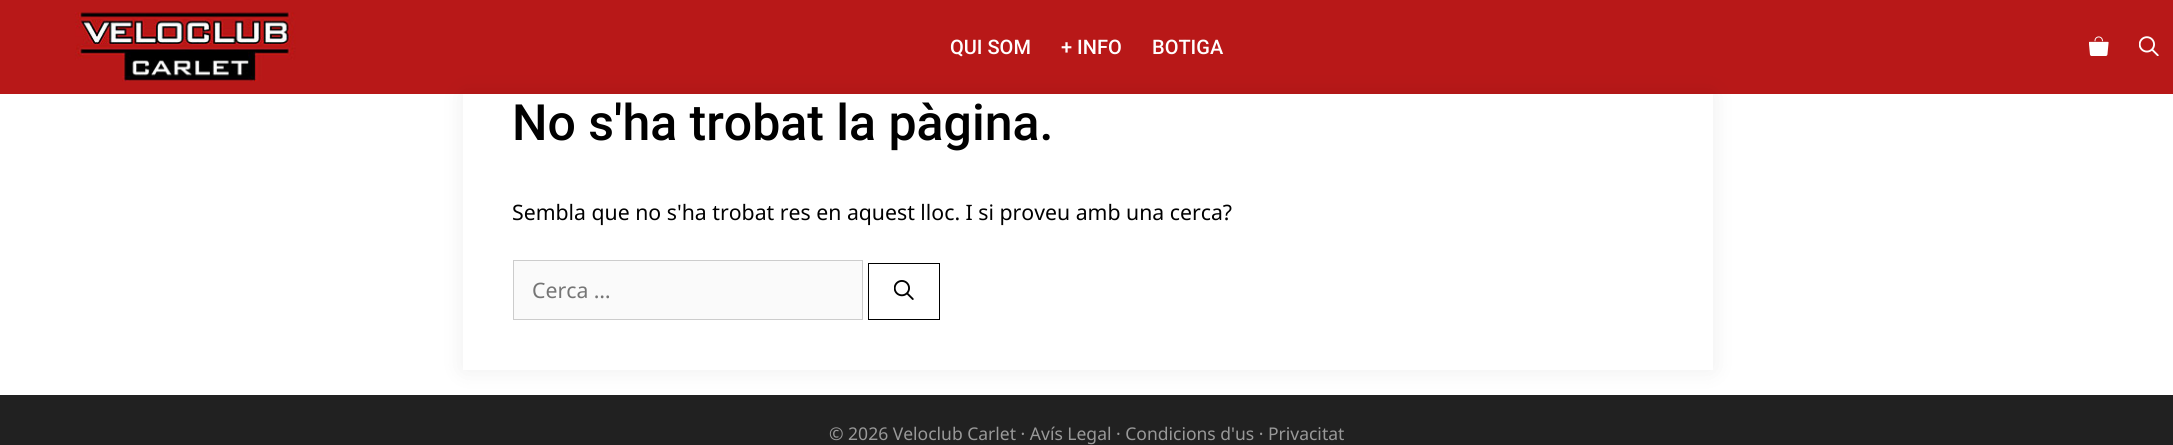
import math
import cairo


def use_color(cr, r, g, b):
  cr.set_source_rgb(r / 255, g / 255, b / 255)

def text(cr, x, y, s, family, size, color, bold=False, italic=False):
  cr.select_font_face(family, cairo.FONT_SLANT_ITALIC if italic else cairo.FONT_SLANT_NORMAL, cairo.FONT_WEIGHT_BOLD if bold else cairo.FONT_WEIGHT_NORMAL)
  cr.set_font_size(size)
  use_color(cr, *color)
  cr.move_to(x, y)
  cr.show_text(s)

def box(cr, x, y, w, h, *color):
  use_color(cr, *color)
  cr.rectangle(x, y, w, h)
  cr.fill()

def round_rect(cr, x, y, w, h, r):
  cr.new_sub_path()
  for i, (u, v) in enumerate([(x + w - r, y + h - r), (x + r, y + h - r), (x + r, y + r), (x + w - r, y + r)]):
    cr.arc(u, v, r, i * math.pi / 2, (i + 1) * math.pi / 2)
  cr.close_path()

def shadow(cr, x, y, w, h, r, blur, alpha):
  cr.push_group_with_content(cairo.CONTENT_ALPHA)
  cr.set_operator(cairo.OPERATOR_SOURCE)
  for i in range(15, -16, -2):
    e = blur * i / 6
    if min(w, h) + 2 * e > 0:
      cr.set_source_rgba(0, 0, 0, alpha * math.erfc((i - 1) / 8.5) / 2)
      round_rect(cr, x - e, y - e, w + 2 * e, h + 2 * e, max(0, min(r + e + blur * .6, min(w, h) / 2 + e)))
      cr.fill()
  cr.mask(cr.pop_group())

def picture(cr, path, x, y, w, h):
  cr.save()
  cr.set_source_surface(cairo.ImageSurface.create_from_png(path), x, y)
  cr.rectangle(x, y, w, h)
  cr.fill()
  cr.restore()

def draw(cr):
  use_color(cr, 255, 255, 255)
  cr.paint()
  box(cr, 0, 0, 2173, 94, 184, 24, 24)
  picture(cr, "img_01.png", 75, 12, 221, 70)
  picture(cr, "img_02.png", 2089, 36, 20, 20)
  picture(cr, "img_03.png", 2139, 36, 20, 20)
  box(cr, 0, 395, 2173, 50, 33, 33, 33)
  use_color(cr, 0, 0, 0)
  shadow(cr, 463, 94, 1250, 276, 0, 12.5, 0.07)
  box(cr, 463, 94, 1250, 276, 255, 255, 255)
  use_color(cr, 250, 250, 250)
  cr.rectangle(513.5, 260.5, 349, 59)
  cr.fill_preserve()
  use_color(cr, 204, 204, 204)
  cr.set_line_width(1)
  cr.stroke()
  cr.rectangle(868.5, 263.5, 71, 56)
  use_color(cr, 0, 0, 0)
  cr.stroke()
  picture(cr, "img_04.png", 894, 280, 20, 20)
  text(cr, 950, 54, "QUI SOM", "Roboto Medium", 20, (255, 255, 255))
  text(cr, 1061, 54, "+ INFO", "Roboto Medium", 20, (255, 255, 255))
  text(cr, 1152, 54, "BOTIGA", "Roboto Medium", 20, (255, 255, 255))
  text(cr, 512, 140, "No s'ha trobat la pàgina.", "Roboto Medium", 50, (0, 0, 0))
  text(cr, 512, 220, "Sembla que no s'ha trobat res en aquest lloc. I si proveu amb una cerca?", "Noto Sans", 21.25, (0, 0, 0))
  text(cr, 532, 298, "Cerca …", "Noto Sans", 21.25, (117, 117, 117))
  text(cr, 829, 440, "© 2026 Veloclub Carlet · Avís Legal · Condicions d'us · Privacitat", "Noto Sans", 17.5, (153, 153, 153))


surface = cairo.ImageSurface(cairo.FORMAT_RGB24, 2173, 445)
cr = cairo.Context(surface)
options = cairo.FontOptions()
options.set_hint_metrics(cairo.HINT_METRICS_OFF)
options.set_hint_style(cairo.HINT_STYLE_NONE)
cr.set_font_options(options)
cr.set_miter_limit(4)
draw(cr)
surface.write_to_png("out.png")
